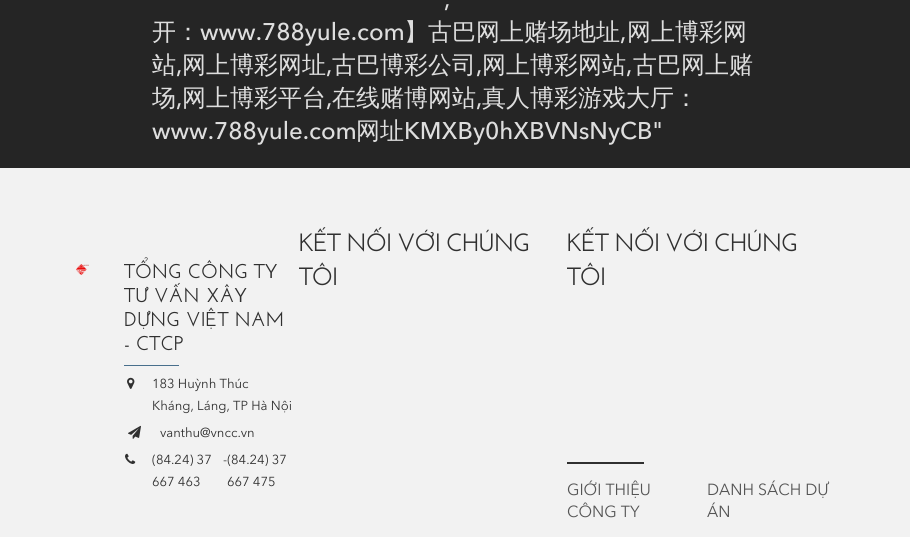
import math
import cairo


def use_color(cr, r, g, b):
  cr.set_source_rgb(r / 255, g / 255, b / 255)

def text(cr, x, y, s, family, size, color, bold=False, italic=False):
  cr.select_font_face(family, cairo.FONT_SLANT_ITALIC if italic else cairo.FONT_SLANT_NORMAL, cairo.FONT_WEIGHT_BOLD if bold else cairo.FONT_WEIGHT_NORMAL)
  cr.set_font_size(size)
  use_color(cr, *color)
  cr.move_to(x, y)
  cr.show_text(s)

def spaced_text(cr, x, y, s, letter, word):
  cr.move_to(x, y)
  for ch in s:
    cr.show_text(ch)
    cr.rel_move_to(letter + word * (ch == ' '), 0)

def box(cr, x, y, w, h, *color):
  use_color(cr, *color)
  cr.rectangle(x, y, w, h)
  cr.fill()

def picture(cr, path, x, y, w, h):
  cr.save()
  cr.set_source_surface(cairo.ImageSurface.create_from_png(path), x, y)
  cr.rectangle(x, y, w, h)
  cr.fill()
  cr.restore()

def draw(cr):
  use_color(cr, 242, 242, 242)
  cr.paint()
  box(cr, 0, 0, 910, 168, 37, 37, 37)
  picture(cr, "img_01.png", 76, 264, 13, 11)
  box(cr, 124, 365, 55, 1, 72, 111, 140)
  picture(cr, "img_02.png", 127, 377, 8, 12)
  picture(cr, "img_03.png", 128, 425, 13, 14)
  picture(cr, "img_04.png", 125, 453, 11, 11)
  box(cr, 567, 462, 77, 2, 48, 48, 48)
  text(cr, 444, 7, ",", "Avenir Next Medium", 24, (222, 222, 222))
  text(cr, 152, 40, "开：", "WenQuanYi Zen Hei Medium", 24, (222, 222, 222))
  text(cr, 200, 40, "www.788yule.com", "Avenir Next Medium", 24, (222, 222, 222))
  text(cr, 404, 40, "】古巴网上赌场地址", "WenQuanYi Zen Hei Medium", 24, (222, 222, 222))
  text(cr, 620, 40, ",", "Avenir Next Medium", 24, (222, 222, 222))
  text(cr, 627, 40, "网上博彩网", "WenQuanYi Zen Hei Medium", 24, (222, 222, 222))
  text(cr, 152, 73, "站", "WenQuanYi Zen Hei Medium", 24, (222, 222, 222))
  text(cr, 176, 73, ",", "Avenir Next Medium", 24, (222, 222, 222))
  text(cr, 182, 73, "网上博彩网址", "WenQuanYi Zen Hei Medium", 24, (222, 222, 222))
  text(cr, 326, 73, ",", "Avenir Next Medium", 24, (222, 222, 222))
  text(cr, 332, 73, "古巴博彩公司", "WenQuanYi Zen Hei Medium", 24, (222, 222, 222))
  text(cr, 476, 73, ",", "Avenir Next Medium", 24, (222, 222, 222))
  text(cr, 482, 73, "网上博彩网站", "WenQuanYi Zen Hei Medium", 24, (222, 222, 222))
  text(cr, 626, 73, ",", "Avenir Next Medium", 24, (222, 222, 222))
  text(cr, 633, 73, "古巴网上赌", "WenQuanYi Zen Hei Medium", 24, (222, 222, 222))
  text(cr, 152, 106, "场", "WenQuanYi Zen Hei Medium", 24, (222, 222, 222))
  text(cr, 176, 106, ",", "Avenir Next Medium", 24, (222, 222, 222))
  text(cr, 182, 106, "网上博彩平台", "WenQuanYi Zen Hei Medium", 24, (222, 222, 222))
  text(cr, 326, 106, ",", "Avenir Next Medium", 24, (222, 222, 222))
  text(cr, 332, 106, "在线赌博网站", "WenQuanYi Zen Hei Medium", 24, (222, 222, 222))
  text(cr, 476, 106, ",", "Avenir Next Medium", 24, (222, 222, 222))
  text(cr, 482, 106, "真人博彩游戏大厅：", "WenQuanYi Zen Hei Medium", 24, (222, 222, 222))
  text(cr, 152, 139, "www.788yule.com", "Avenir Next Medium", 24, (222, 222, 222))
  text(cr, 356, 139, "网址", "WenQuanYi Zen Hei Medium", 24, (222, 222, 222))
  text(cr, 404, 139, "KMXBy0hXBVNsNyCB\"", "Avenir Next Medium", 24, (222, 222, 222))
  text(cr, 124, 278, "TỔNG CÔNG TY", "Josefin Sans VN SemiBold", 20, (48, 48, 48))
  text(cr, 124, 302, "TƯ VẤN XÂY", "Josefin Sans VN SemiBold", 20, (48, 48, 48))
  text(cr, 124, 326, "DỰNG VIỆT NAM", "Josefin Sans VN SemiBold", 20, (48, 48, 48))
  text(cr, 124, 350, "- CTCP", "Josefin Sans VN SemiBold", 20, (48, 48, 48))
  text(cr, 152, 388, "183 Huỳnh Thúc", "Avenir Next", 13, (48, 48, 48))
  text(cr, 152, 410, "Kháng, Láng, TP Hà Nội", "Avenir Next", 13, (48, 48, 48))
  text(cr, 160, 437, "vanthu@vncc.vn", "Avenir Next", 13, (48, 48, 48))
  text(cr, 152, 464, "(84.24) 37", "Avenir Next", 13, (48, 48, 48))
  text(cr, 152, 486, "667 463", "Avenir Next", 13, (48, 48, 48))
  text(cr, 223, 464, "-(84.24) 37", "Avenir Next", 13, (48, 48, 48))
  text(cr, 227, 486, "667 475", "Avenir Next", 13, (48, 48, 48))
  cr.select_font_face("Josefin Sans VN SemiBold")
  cr.set_font_size(25)
  spaced_text(cr, 299, 251, "KẾT NỐI VỚI CHÚNG", -1, 0)
  spaced_text(cr, 299, 285, "TÔI", -1, 0)
  spaced_text(cr, 567, 251, "KẾT NỐI VỚI CHÚNG", -1, 0)
  spaced_text(cr, 567, 285, "TÔI", -1, 0)
  text(cr, 567, 495, "GIỚI THIỆU", "Avenir Next", 16, (85, 85, 85))
  text(cr, 567, 517, "CÔNG TY", "Avenir Next", 16, (85, 85, 85))
  text(cr, 707, 495, "DANH SÁCH DỰ", "Avenir Next", 16, (85, 85, 85))
  text(cr, 707, 517, "ÁN", "Avenir Next", 16, (85, 85, 85))


surface = cairo.ImageSurface(cairo.FORMAT_RGB24, 910, 537)
cr = cairo.Context(surface)
options = cairo.FontOptions()
options.set_hint_metrics(cairo.HINT_METRICS_OFF)
options.set_hint_style(cairo.HINT_STYLE_NONE)
cr.set_font_options(options)
cr.set_miter_limit(4)
draw(cr)
surface.write_to_png("out.png")
